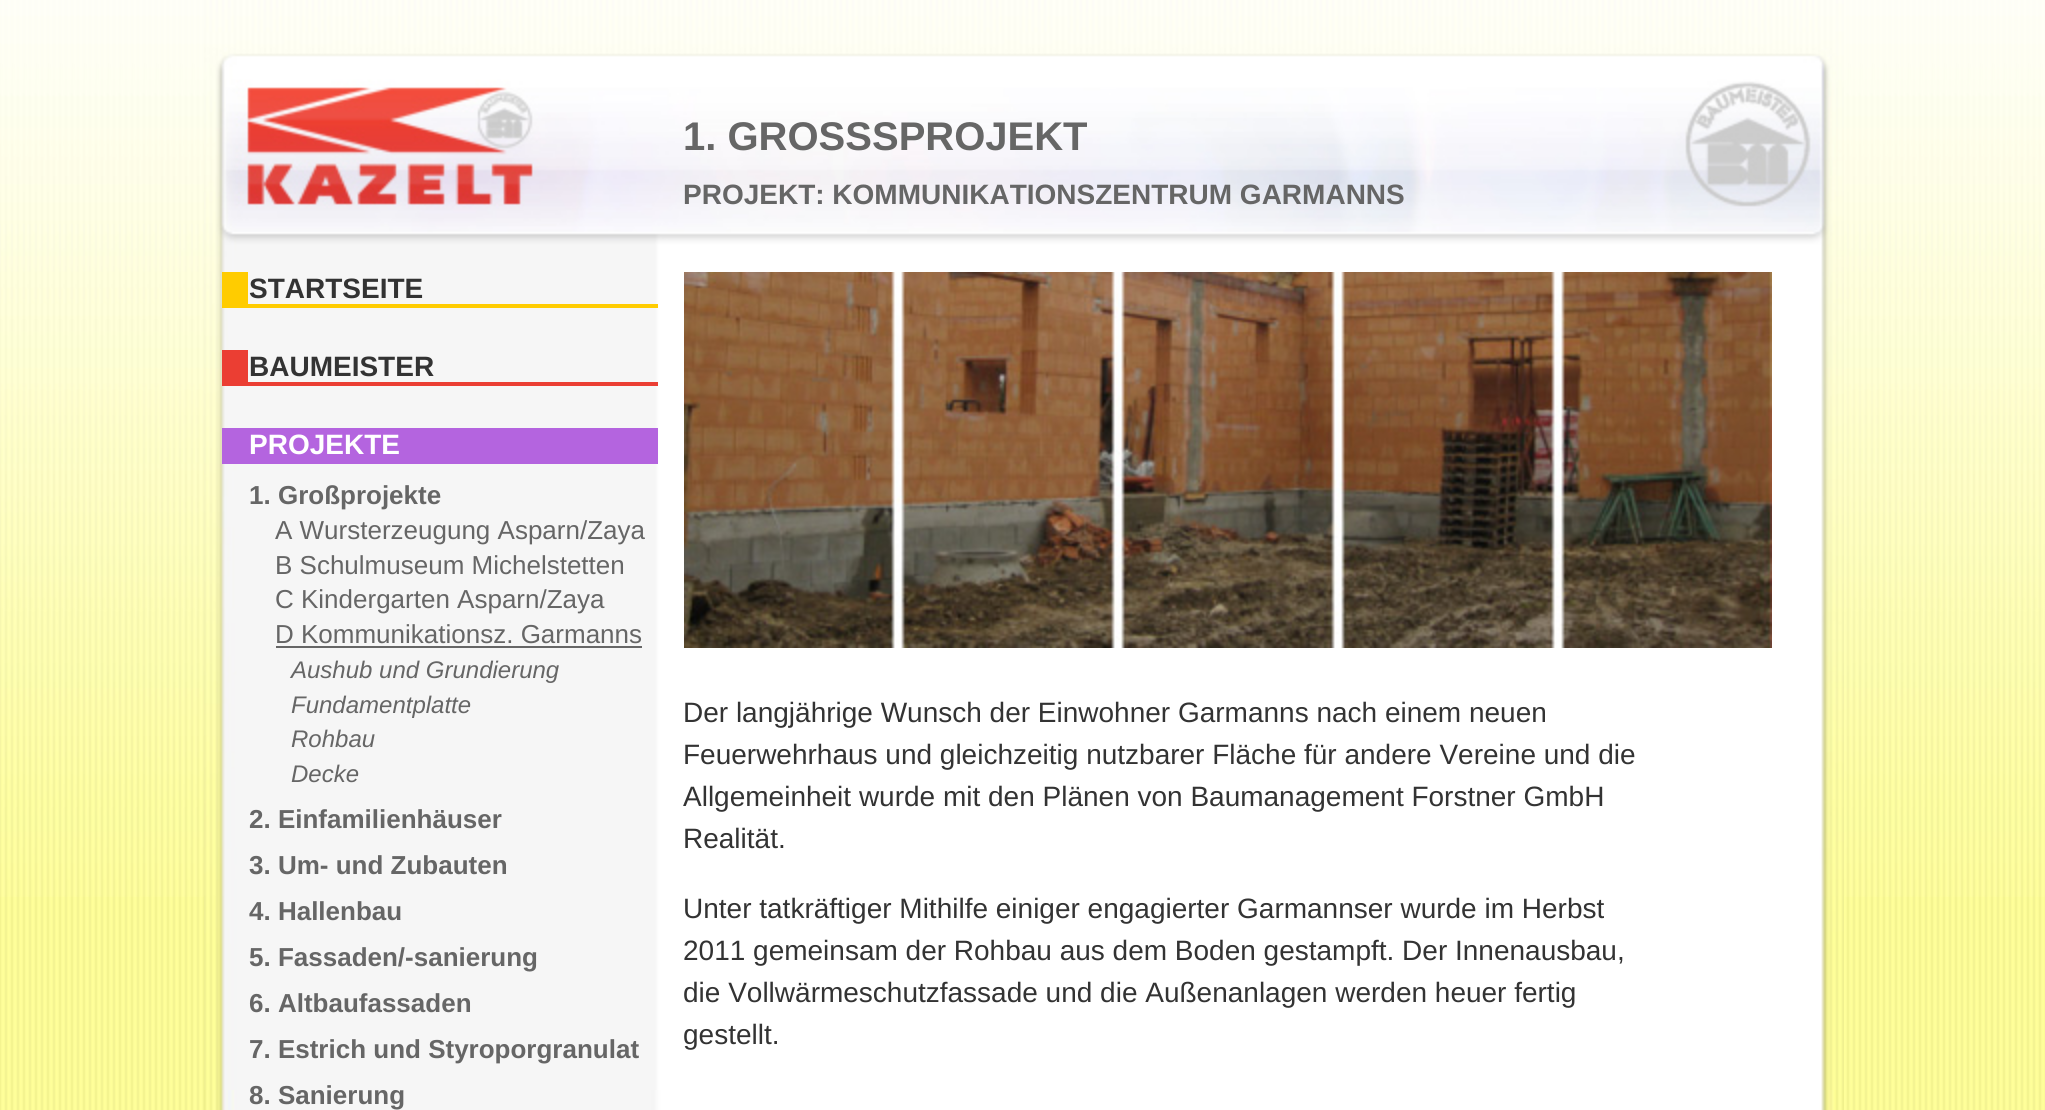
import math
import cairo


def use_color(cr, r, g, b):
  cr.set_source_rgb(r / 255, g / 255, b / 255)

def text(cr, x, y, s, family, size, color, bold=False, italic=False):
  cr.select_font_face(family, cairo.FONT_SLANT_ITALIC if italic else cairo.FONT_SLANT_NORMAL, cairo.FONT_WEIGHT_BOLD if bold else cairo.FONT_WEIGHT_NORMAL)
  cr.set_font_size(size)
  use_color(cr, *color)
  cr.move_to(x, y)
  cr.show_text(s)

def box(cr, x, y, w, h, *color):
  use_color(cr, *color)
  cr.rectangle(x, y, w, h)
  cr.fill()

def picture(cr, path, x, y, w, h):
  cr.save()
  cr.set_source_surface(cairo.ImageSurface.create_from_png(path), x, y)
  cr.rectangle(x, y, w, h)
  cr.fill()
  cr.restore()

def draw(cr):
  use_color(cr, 255, 255, 255)
  cr.paint()
  picture(cr, "img_01.png", 0, 897, 2045, 213)
  picture(cr, "img_02.png", 0, 0, 2045, 897)
  picture(cr, "img_03.png", 204, 1090, 1640, 20)
  picture(cr, "img_04.png", 204, 0, 1640, 258)
  picture(cr, "img_05.png", 204, 258, 1640, 832)
  box(cr, 248, 304, 410, 4, 255, 204, 0)
  box(cr, 222, 272, 26, 36, 255, 204, 0)
  box(cr, 248, 382, 410, 4, 235, 62, 51)
  box(cr, 222, 350, 26, 36, 235, 62, 51)
  box(cr, 248, 428, 410, 36, 180, 100, 223)
  box(cr, 222, 428, 26, 36, 180, 100, 223)
  box(cr, 276, 646, 366, 2, 102, 102, 102)
  picture(cr, "img_06.png", 684, 272, 1088, 376)
  text(cr, 683, 150, "1. GROSSSPROJEKT", "Liberation Sans", 40, (102, 102, 102), bold=True)
  text(cr, 683, 204, "PROJEKT: KOMMUNIKATIONSZENTRUM GARMANNS", "Liberation Sans", 28, (102, 102, 102), bold=True)
  text(cr, 249, 298, "STARTSEITE", "Liberation Sans", 28, (51, 51, 51), bold=True)
  text(cr, 249, 376, "BAUMEISTER", "Liberation Sans", 28, (51, 51, 51), bold=True)
  text(cr, 249, 454, "PROJEKTE", "Liberation Sans", 28, (255, 255, 255), bold=True)
  text(cr, 249, 504, "1. Großprojekte", "Liberation Sans", 26, (102, 102, 102), bold=True)
  text(cr, 275, 539, "A Wursterzeugung Asparn/Zaya", "Liberation Sans", 26, (102, 102, 102))
  text(cr, 275, 574, "B Schulmuseum Michelstetten", "Liberation Sans", 26, (102, 102, 102))
  text(cr, 275, 608, "C Kindergarten Asparn/Zaya", "Liberation Sans", 26, (102, 102, 102))
  text(cr, 275, 643, "D Kommunikationsz. Garmanns", "Liberation Sans", 26, (102, 102, 102))
  text(cr, 291, 678, "Aushub und Grundierung", "Liberation Sans", 24, (102, 102, 102), italic=True)
  text(cr, 291, 713, "Fundamentplatte", "Liberation Sans", 24, (102, 102, 102), italic=True)
  text(cr, 291, 747, "Rohbau", "Liberation Sans", 24, (102, 102, 102), italic=True)
  text(cr, 291, 782, "Decke", "Liberation Sans", 24, (102, 102, 102), italic=True)
  text(cr, 249, 828, "2. Einfamilienhäuser", "Liberation Sans", 26, (102, 102, 102), bold=True)
  text(cr, 249, 874, "3. Um- und Zubauten", "Liberation Sans", 26, (102, 102, 102), bold=True)
  text(cr, 249, 920, "4. Hallenbau", "Liberation Sans", 26, (102, 102, 102), bold=True)
  text(cr, 249, 966, "5. Fassaden/-sanierung", "Liberation Sans", 26, (102, 102, 102), bold=True)
  text(cr, 249, 1012, "6. Altbaufassaden", "Liberation Sans", 26, (102, 102, 102), bold=True)
  text(cr, 249, 1058, "7. Estrich und Styroporgranulat", "Liberation Sans", 26, (102, 102, 102), bold=True)
  text(cr, 249, 1104, "8. Sanierung", "Liberation Sans", 26, (102, 102, 102), bold=True)
  text(cr, 683, 722, "Der langjährige Wunsch der Einwohner Garmanns nach einem neuen", "Liberation Sans", 28, (51, 51, 51))
  text(cr, 683, 764, "Feuerwehrhaus und gleichzeitig nutzbarer Fläche für andere Vereine und die", "Liberation Sans", 28, (51, 51, 51))
  text(cr, 683, 806, "Allgemeinheit wurde mit den Plänen von Baumanagement Forstner GmbH", "Liberation Sans", 28, (51, 51, 51))
  text(cr, 683, 848, "Realität.", "Liberation Sans", 28, (51, 51, 51))
  text(cr, 683, 918, "Unter tatkräftiger Mithilfe einiger engagierter Garmannser wurde im Herbst", "Liberation Sans", 28, (51, 51, 51))
  text(cr, 683, 960, "2011 gemeinsam der Rohbau aus dem Boden gestampft. Der Innenausbau,", "Liberation Sans", 28, (51, 51, 51))
  text(cr, 683, 1002, "die Vollwärmeschutzfassade und die Außenanlagen werden heuer fertig", "Liberation Sans", 28, (51, 51, 51))
  text(cr, 683, 1044, "gestellt.", "Liberation Sans", 28, (51, 51, 51))


surface = cairo.ImageSurface(cairo.FORMAT_RGB24, 2045, 1110)
cr = cairo.Context(surface)
options = cairo.FontOptions()
options.set_hint_metrics(cairo.HINT_METRICS_OFF)
options.set_hint_style(cairo.HINT_STYLE_NONE)
cr.set_font_options(options)
cr.set_miter_limit(4)
draw(cr)
surface.write_to_png("out.png")
